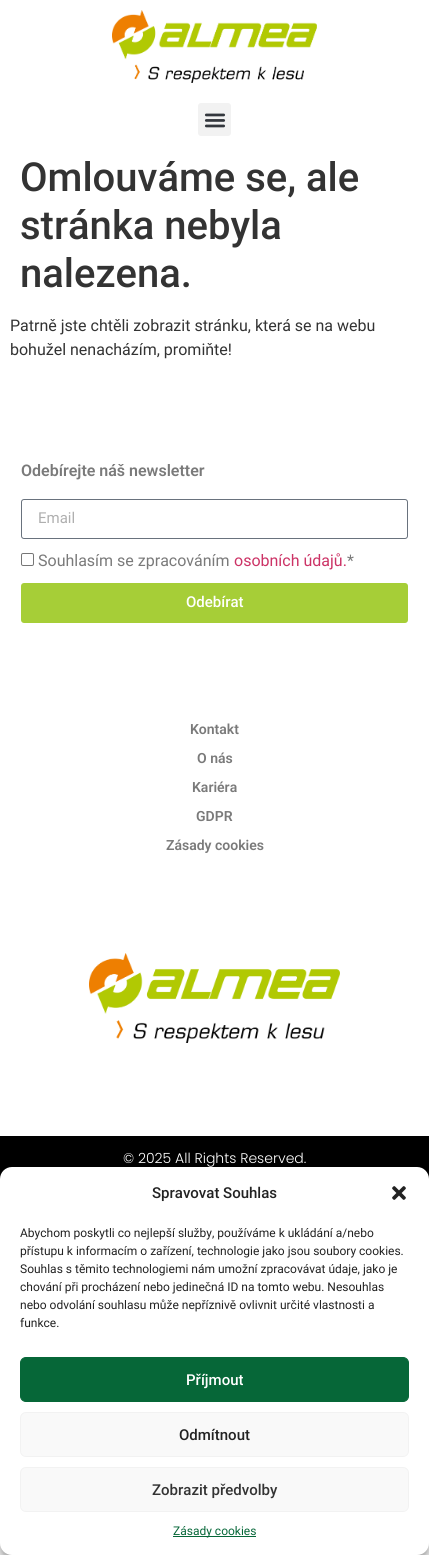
import math
import cairo


def use_color(cr, r, g, b):
  cr.set_source_rgb(r / 255, g / 255, b / 255)

def text(cr, x, y, s, family, size, color, bold=False, italic=False):
  cr.select_font_face(family, cairo.FONT_SLANT_ITALIC if italic else cairo.FONT_SLANT_NORMAL, cairo.FONT_WEIGHT_BOLD if bold else cairo.FONT_WEIGHT_NORMAL)
  cr.set_font_size(size)
  use_color(cr, *color)
  cr.move_to(x, y)
  cr.show_text(s)

def box(cr, x, y, w, h, *color):
  use_color(cr, *color)
  cr.rectangle(x, y, w, h)
  cr.fill()

def round_rect(cr, x, y, w, h, r):
  cr.new_sub_path()
  for i, (u, v) in enumerate([(x + w - r, y + h - r), (x + r, y + h - r), (x + r, y + r), (x + w - r, y + r)]):
    cr.arc(u, v, r, i * math.pi / 2, (i + 1) * math.pi / 2)
  cr.close_path()

def shadow(cr, x, y, w, h, r, blur, alpha):
  cr.push_group_with_content(cairo.CONTENT_ALPHA)
  cr.set_operator(cairo.OPERATOR_SOURCE)
  for i in range(15, -16, -2):
    e = blur * i / 6
    if min(w, h) + 2 * e > 0:
      cr.set_source_rgba(0, 0, 0, alpha * math.erfc((i - 1) / 8.5) / 2)
      round_rect(cr, x - e, y - e, w + 2 * e, h + 2 * e, max(0, min(r + e + blur * .6, min(w, h) / 2 + e)))
      cr.fill()
  cr.mask(cr.pop_group())

def picture(cr, path, x, y, w, h):
  cr.save()
  cr.set_source_surface(cairo.ImageSurface.create_from_png(path), x, y)
  cr.rectangle(x, y, w, h)
  cr.fill()
  cr.restore()

def draw(cr):
  use_color(cr, 255, 255, 255)
  cr.paint()
  picture(cr, "img_01.png", 112, 10, 205, 73)
  use_color(cr, 242, 242, 242)
  round_rect(cr, 198, 103, 33, 33, 3)
  cr.fill()
  picture(cr, "img_02.png", 204, 113, 22, 15)
  round_rect(cr, 21.5, 499.5, 386, 39, 2.5)
  use_color(cr, 105, 114, 125)
  cr.set_line_width(1)
  cr.stroke()
  round_rect(cr, 21.5, 553.5, 12, 12, 1.5)
  use_color(cr, 118, 118, 118)
  cr.stroke()
  use_color(cr, 166, 206, 55)
  round_rect(cr, 21, 583, 387, 40, 3)
  cr.fill()
  picture(cr, "img_03.png", 89, 953, 251, 90)
  box(cr, 0, 1136, 429, 43, 0, 0, 0)
  use_color(cr, 0, 0, 0)
  shadow(cr, 0, 1173, 429, 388, 12, 3, 0.23)
  shadow(cr, 0, 1177, 429, 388, 12, 10, 0.19)
  use_color(cr, 255, 255, 255)
  round_rect(cr, 0, 1167, 429, 388, 12)
  cr.fill()
  picture(cr, "img_04.png", 392, 1186, 14, 14)
  use_color(cr, 6, 103, 56)
  round_rect(cr, 20.5, 1357.5, 388, 44, 5.5)
  cr.fill_preserve()
  cr.stroke()
  use_color(cr, 249, 249, 249)
  round_rect(cr, 20.5, 1412.5, 388, 44, 5.5)
  cr.fill_preserve()
  use_color(cr, 242, 242, 242)
  cr.stroke()
  use_color(cr, 249, 249, 249)
  round_rect(cr, 20.5, 1467.5, 388, 44, 5.5)
  cr.fill_preserve()
  use_color(cr, 242, 242, 242)
  cr.stroke()
  box(cr, 173, 1536, 83, 1, 6, 103, 56)
  text(cr, 20, 191, "Omlouváme se, ale", "Roboto Medium", 40, (51, 51, 51))
  text(cr, 20, 239, "stránka nebyla", "Roboto Medium", 40, (51, 51, 51))
  text(cr, 20, 287, "nalezena.", "Roboto Medium", 40, (51, 51, 51))
  text(cr, 10, 331, "Patrně jste chtěli zobrazit stránku, která se na webu", "Roboto", 16, (51, 51, 51))
  text(cr, 10, 355, "bohužel nenacházím, promiňte!", "Roboto", 16, (51, 51, 51))
  text(cr, 21, 476, "Odebírejte náš newsletter", "Roboto SemiBold", 16, (122, 122, 122))
  text(cr, 38, 523, "Email", "Roboto", 15, (175, 175, 175))
  text(cr, 38, 566, "Souhlasím se zpracováním", "Roboto", 16, (122, 122, 122))
  text(cr, 234, 566, "osobních údajů.", "Roboto", 16, (204, 51, 102))
  text(cr, 347, 566, "*", "Roboto", 16, (122, 122, 122))
  text(cr, 186, 607, "Odebírat", "Roboto Medium", 15, (255, 255, 255))
  text(cr, 190, 734, "Kontakt", "Roboto SemiBold", 14, (122, 122, 122))
  text(cr, 197, 763, "O nás", "Roboto SemiBold", 14, (122, 122, 122))
  text(cr, 192, 792, "Kariéra", "Roboto SemiBold", 14, (122, 122, 122))
  text(cr, 196, 821, "GDPR", "Roboto SemiBold", 14, (122, 122, 122))
  text(cr, 166, 850, "Zásady cookies", "Roboto SemiBold", 14, (122, 122, 122))
  text(cr, 123, 1163, "© 2025 All Rights Reserved.", "Poppins Light", 14, (255, 255, 255))
  text(cr, 152, 1198, "Spravovat Souhlas", "Roboto Medium", 15, (34, 34, 34))
  text(cr, 20, 1237, "Abychom poskytli co nejlepší služby, používáme k ukládání a/nebo", "Roboto", 12, (34, 34, 34))
  text(cr, 20, 1255, "přístupu k informacím o zařízení, technologie jako jsou soubory cookies.", "Roboto", 12, (34, 34, 34))
  text(cr, 20, 1273, "Souhlas s těmito technologiemi nám umožní zpracovávat údaje, jako je", "Roboto", 12, (34, 34, 34))
  text(cr, 20, 1291, "chování při procházení nebo jedinečná ID na tomto webu. Nesouhlas", "Roboto", 12, (34, 34, 34))
  text(cr, 20, 1309, "nebo odvolání souhlasu může nepříznivě ovlivnit určité vlastnosti a", "Roboto", 12, (34, 34, 34))
  text(cr, 20, 1327, "funkce.", "Roboto", 12, (34, 34, 34))
  text(cr, 186, 1385, "Příjmout", "Roboto Medium", 15, (255, 255, 255))
  text(cr, 179, 1440, "Odmítnout", "Roboto Medium", 15, (34, 34, 34))
  text(cr, 152, 1495, "Zobrazit předvolby", "Roboto Medium", 15, (51, 51, 51))
  text(cr, 173, 1535, "Zásady cookies", "Roboto", 12, (6, 103, 56))


surface = cairo.ImageSurface(cairo.FORMAT_RGB24, 429, 1555)
cr = cairo.Context(surface)
options = cairo.FontOptions()
options.set_hint_metrics(cairo.HINT_METRICS_OFF)
options.set_hint_style(cairo.HINT_STYLE_NONE)
cr.set_font_options(options)
cr.set_miter_limit(4)
draw(cr)
surface.write_to_png("out.png")
